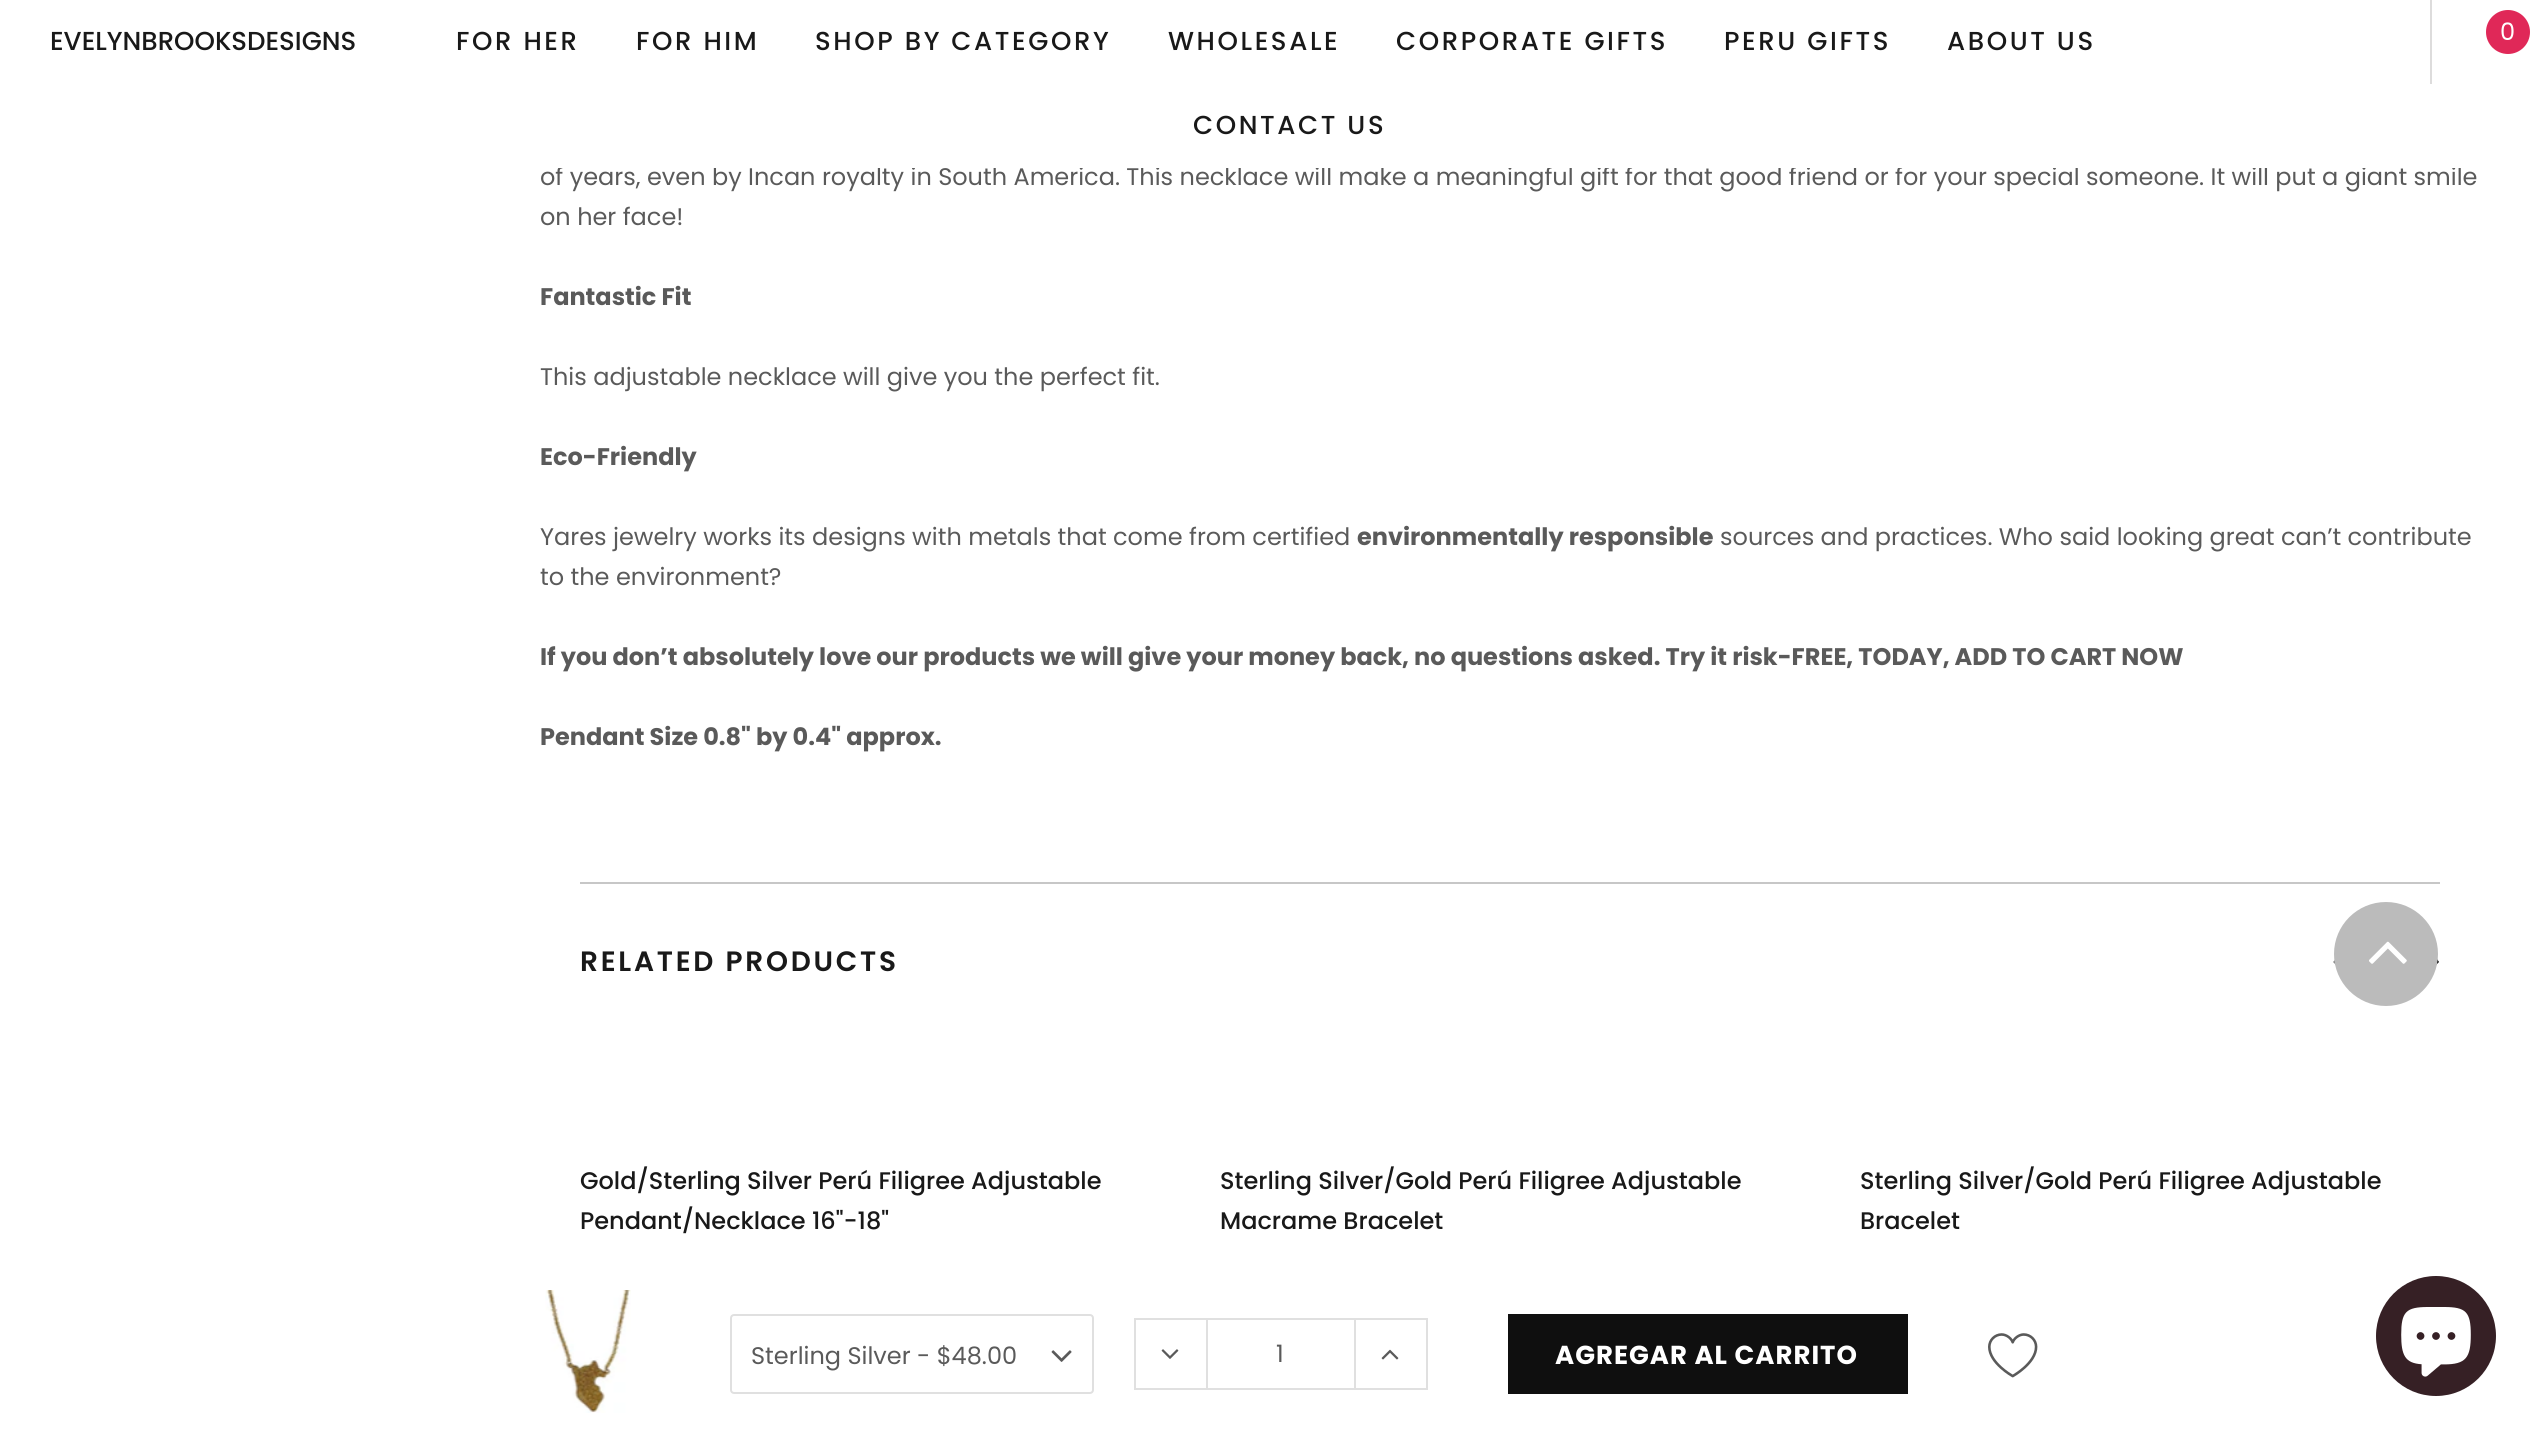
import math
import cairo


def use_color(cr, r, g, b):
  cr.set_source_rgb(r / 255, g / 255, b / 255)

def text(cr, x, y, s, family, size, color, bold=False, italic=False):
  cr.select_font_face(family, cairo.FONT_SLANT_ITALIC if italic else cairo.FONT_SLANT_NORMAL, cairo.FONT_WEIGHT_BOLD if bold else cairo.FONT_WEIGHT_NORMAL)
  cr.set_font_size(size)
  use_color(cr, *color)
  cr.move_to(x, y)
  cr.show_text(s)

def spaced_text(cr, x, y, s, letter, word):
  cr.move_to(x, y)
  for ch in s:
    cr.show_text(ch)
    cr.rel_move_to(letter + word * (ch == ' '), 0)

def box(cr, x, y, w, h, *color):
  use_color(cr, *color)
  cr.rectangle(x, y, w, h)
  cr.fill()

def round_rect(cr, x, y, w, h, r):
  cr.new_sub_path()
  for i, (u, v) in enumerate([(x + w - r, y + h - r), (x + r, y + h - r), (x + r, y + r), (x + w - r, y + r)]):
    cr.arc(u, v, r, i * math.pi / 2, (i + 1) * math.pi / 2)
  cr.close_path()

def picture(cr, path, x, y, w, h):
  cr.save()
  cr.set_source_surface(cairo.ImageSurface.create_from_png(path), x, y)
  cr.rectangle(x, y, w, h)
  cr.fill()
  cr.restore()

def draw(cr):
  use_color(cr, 255, 255, 255)
  cr.paint()
  box(cr, 2430, 0, 2, 84, 221, 220, 220)
  use_color(cr, 224, 40, 88)
  cr.arc(2508, 32, 22, 0, 2 * math.pi)
  cr.fill()
  box(cr, 580, 882, 1860, 2, 199, 199, 199)
  use_color(cr, 128, 128, 128)
  cr.new_path()
  cr.move_to(2333, 962)
  cr.line_to(2355, 984)
  cr.line_to(2355, 979)
  cr.line_to(2338, 962)
  cr.line_to(2355, 945)
  cr.line_to(2355, 940)
  cr.close_path()
  cr.fill()
  use_color(cr, 0, 0, 0)
  cr.new_path()
  cr.move_to(2437, 959)
  cr.line_to(2417, 940)
  cr.line_to(2417, 945)
  cr.line_to(2434, 962)
  cr.line_to(2417, 979)
  cr.line_to(2417, 984)
  cr.line_to(2439, 962)
  cr.close_path()
  cr.fill()
  picture(cr, "img_01.png", 545, 1290, 86, 123)
  round_rect(cr, 731, 1315, 362, 78, 3)
  use_color(cr, 224, 224, 224)
  cr.stroke()
  picture(cr, "img_02.png", 1051, 1350, 21, 12)
  box(cr, 1134, 1318, 72, 2, 224, 224, 224)
  box(cr, 1134, 1388, 72, 2, 224, 224, 224)
  box(cr, 1134, 1318, 2, 72, 224, 224, 224)
  picture(cr, "img_03.png", 1161, 1349, 18, 10)
  cr.rectangle(1207, 1319, 148, 70)
  cr.stroke()
  box(cr, 1356, 1318, 72, 2, 224, 224, 224)
  box(cr, 1426, 1318, 2, 72, 224, 224, 224)
  box(cr, 1356, 1388, 72, 2, 224, 224, 224)
  picture(cr, "img_04.png", 1381, 1349, 18, 11)
  box(cr, 1508, 1314, 400, 80, 15, 15, 15)
  picture(cr, "img_05.png", 1988, 1333, 50, 45)
  use_color(cr, 187, 187, 187)
  cr.arc(2386, 954, 51, 0, 2 * math.pi)
  cr.fill_preserve()
  cr.stroke()
  picture(cr, "img_06.png", 2369, 941, 38, 23)
  use_color(cr, 54, 32, 37)
  cr.arc(2436, 1336, 60, 0, 2 * math.pi)
  cr.fill()
  picture(cr, "img_07.png", 2401, 1307, 70, 70)
  text(cr, 50, 50, "EVELYNBROOKSDESIGNS", "Poppins Medium", 26, (25, 25, 25))
  spaced_text(cr, 456, 50, "FOR HER", 2.6, 0)
  spaced_text(cr, 636, 50, "FOR HIM", 2.6, 0)
  spaced_text(cr, 815, 50, "SHOP BY CATEGORY", 2.6, 0)
  spaced_text(cr, 1168, 50, "WHOLESALE", 2.6, 0)
  spaced_text(cr, 1396, 50, "CORPORATE GIFTS", 2.6, 0)
  spaced_text(cr, 1724, 50, "PERU GIFTS", 2.6, 0)
  spaced_text(cr, 1947, 50, "ABOUT US", 2.6, 0)
  spaced_text(cr, 1193, 134, "CONTACT US", 2.6, 0)
  text(cr, 2500, 40, "0", "Poppins", 24, (255, 255, 255))
  text(cr, 540, 185, "of years, even by Incan royalty in South America. This necklace will make a meaningful gift for that good friend or for your special someone. It will put a giant smile", "Poppins", 24, (90, 90, 90))
  box(cr, 558, 166, 1903, 2, 255, 255, 255)
  text(cr, 540, 225, "on her face!", "Poppins", 24, (90, 90, 90))
  text(cr, 540, 305, "Fantastic Fit", "Poppins", 24, (90, 90, 90), bold=True)
  text(cr, 540, 385, "This adjustable necklace will give you the perfect fit.", "Poppins", 24, (90, 90, 90))
  text(cr, 540, 465, "Eco-Friendly", "Poppins", 24, (90, 90, 90), bold=True)
  text(cr, 540, 545, "Yares jewelry works its designs with metals that come from certified", "Poppins", 24, (90, 90, 90))
  text(cr, 1357, 545, "environmentally responsible", "Poppins", 24, (90, 90, 90), bold=True)
  text(cr, 1720, 545, "sources and practices. Who said looking great can’t contribute", "Poppins", 24, (90, 90, 90))
  text(cr, 540, 585, "to the environment?", "Poppins", 24, (90, 90, 90))
  text(cr, 540, 665, "If you don’t absolutely love our products we will give your money back, no questions asked. Try it risk-FREE, TODAY, ADD TO CART NOW", "Poppins", 24, (90, 90, 90), bold=True)
  text(cr, 540, 745, "Pendant Size 0.8\" by 0.4\" approx.", "Poppins", 24, (90, 90, 90), bold=True)
  cr.select_font_face("Poppins SemiBold")
  cr.set_font_size(28)
  use_color(cr, 25, 25, 25)
  spaced_text(cr, 580, 971, "RELATED PRODUCTS", 2.75, 0)
  text(cr, 580, 1189, "Gold/Sterling Silver Perú Filigree Adjustable", "Poppins Medium", 24, (25, 25, 25))
  text(cr, 580, 1229, "Pendant/Necklace 16\"-18\"", "Poppins Medium", 24, (25, 25, 25))
  text(cr, 1220, 1189, "Sterling Silver/Gold Perú Filigree Adjustable", "Poppins Medium", 24, (25, 25, 25))
  text(cr, 1220, 1229, "Macrame Bracelet", "Poppins Medium", 24, (25, 25, 25))
  text(cr, 1860, 1189, "Sterling Silver/Gold Perú Filigree Adjustable", "Poppins Medium", 24, (25, 25, 25))
  text(cr, 1860, 1229, "Bracelet", "Poppins Medium", 24, (25, 25, 25))
  text(cr, 751, 1364, "Sterling Silver - $48.00", "Poppins", 24, (90, 90, 90))
  text(cr, 1276, 1362, "1", "Poppins", 24, (90, 90, 90))
  cr.select_font_face("Poppins", cairo.FONT_SLANT_NORMAL, cairo.FONT_WEIGHT_BOLD)
  cr.set_font_size(26)
  use_color(cr, 255, 255, 255)
  spaced_text(cr, 1555, 1364, "AGREGAR AL CARRITO", 1, 0)


surface = cairo.ImageSurface(cairo.FORMAT_RGB24, 2540, 1437)
cr = cairo.Context(surface)
options = cairo.FontOptions()
options.set_hint_metrics(cairo.HINT_METRICS_OFF)
options.set_hint_style(cairo.HINT_STYLE_NONE)
cr.set_font_options(options)
cr.set_miter_limit(4)
draw(cr)
surface.write_to_png("out.png")
